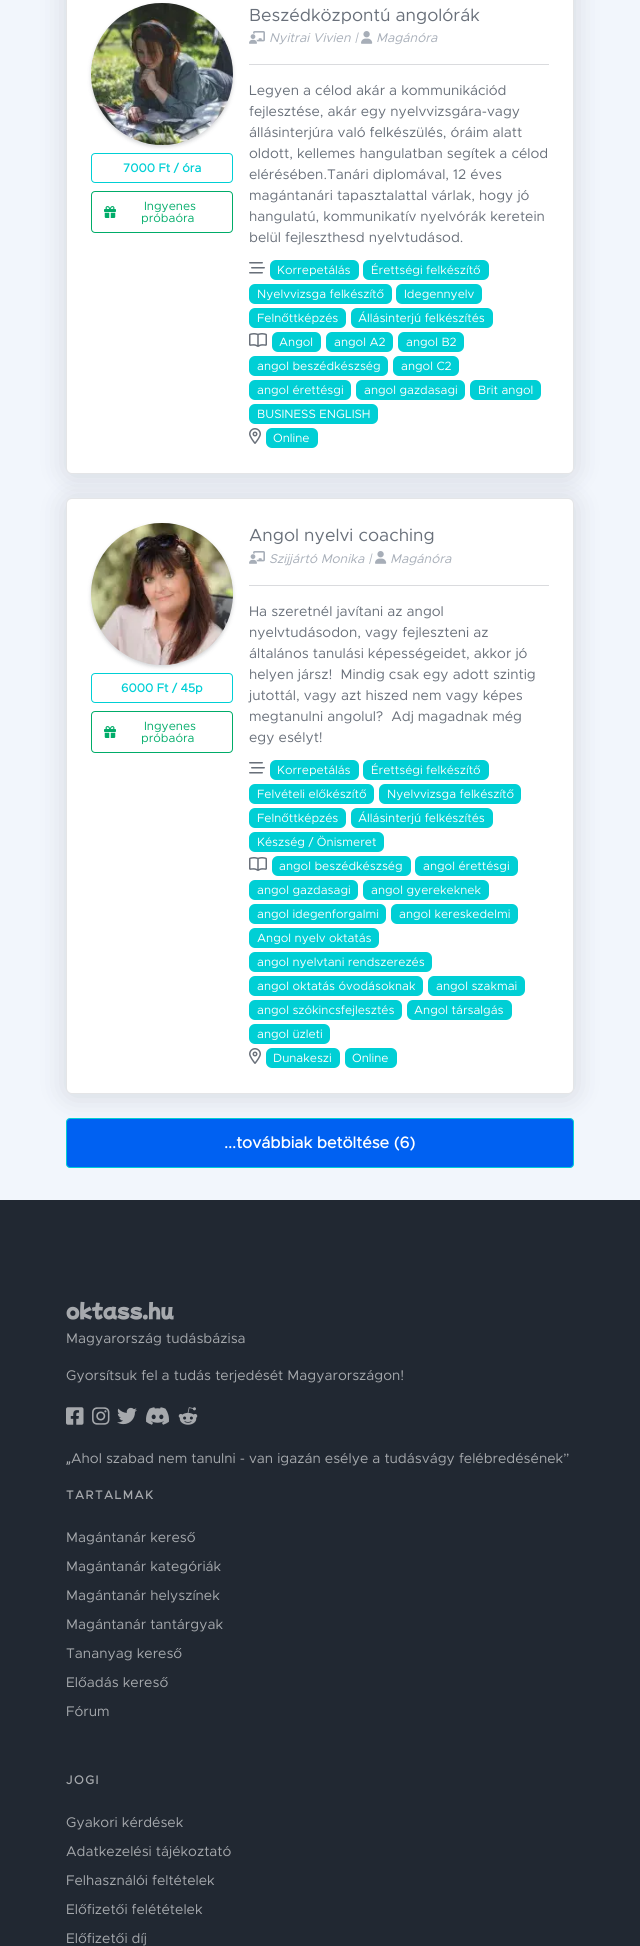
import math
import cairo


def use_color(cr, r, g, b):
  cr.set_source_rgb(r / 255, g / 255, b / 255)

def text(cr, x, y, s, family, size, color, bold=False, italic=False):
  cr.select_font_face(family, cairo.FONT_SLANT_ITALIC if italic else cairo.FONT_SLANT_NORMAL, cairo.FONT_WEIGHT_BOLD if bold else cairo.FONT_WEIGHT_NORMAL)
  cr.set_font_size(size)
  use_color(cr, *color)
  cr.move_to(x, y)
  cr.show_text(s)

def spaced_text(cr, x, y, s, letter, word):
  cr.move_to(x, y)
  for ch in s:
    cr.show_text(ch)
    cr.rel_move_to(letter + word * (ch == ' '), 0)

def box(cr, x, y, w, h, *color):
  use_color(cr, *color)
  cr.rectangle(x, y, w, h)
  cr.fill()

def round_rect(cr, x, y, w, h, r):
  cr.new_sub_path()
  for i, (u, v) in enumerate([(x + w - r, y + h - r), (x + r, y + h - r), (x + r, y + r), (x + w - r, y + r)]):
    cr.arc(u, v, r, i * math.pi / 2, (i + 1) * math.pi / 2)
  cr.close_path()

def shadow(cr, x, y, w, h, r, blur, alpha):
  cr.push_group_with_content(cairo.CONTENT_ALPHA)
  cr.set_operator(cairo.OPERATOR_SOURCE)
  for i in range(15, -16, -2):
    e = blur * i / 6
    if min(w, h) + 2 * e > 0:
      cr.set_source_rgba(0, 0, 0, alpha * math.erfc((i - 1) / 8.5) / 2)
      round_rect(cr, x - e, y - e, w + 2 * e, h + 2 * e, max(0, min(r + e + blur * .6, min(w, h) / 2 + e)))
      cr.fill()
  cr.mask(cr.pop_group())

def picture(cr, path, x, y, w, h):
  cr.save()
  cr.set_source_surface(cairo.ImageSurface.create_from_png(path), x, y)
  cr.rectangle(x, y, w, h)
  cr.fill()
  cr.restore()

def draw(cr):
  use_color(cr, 242, 246, 252)
  cr.paint()
  use_color(cr, 33, 40, 50)
  shadow(cr, 66, -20, 508, 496, 6, 14, 0.15)
  use_color(cr, 255, 255, 255)
  round_rect(cr, 66, -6, 508, 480, 6)
  cr.fill()
  round_rect(cr, 66.5, -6.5, 507, 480, 5.5)
  cr.set_source_rgba(0.129, 0.157, 0.196, 0.12)
  cr.set_line_width(1)
  cr.stroke()
  use_color(cr, 33, 40, 50)
  shadow(cr, 91, 5, 142, 142, 71, 2, 0.2)
  picture(cr, "img_01.png", 91, 3, 142, 142)
  round_rect(cr, 91.5, 153.5, 141, 29, 3.5)
  use_color(cr, 0, 207, 213)
  cr.stroke()
  round_rect(cr, 91.5, 191.5, 141, 41, 3.5)
  use_color(cr, 0, 172, 105)
  cr.stroke()
  picture(cr, "img_02.png", 104, 206, 12, 12)
  picture(cr, "img_03.png", 249, 31, 16, 13)
  picture(cr, "img_04.png", 361, 31, 12, 13)
  box(cr, 249, 64, 300, 1, 218, 219, 222)
  picture(cr, "img_05.png", 249, 262, 16, 12)
  use_color(cr, 0, 207, 213)
  round_rect(cr, 270, 260, 89, 20, 6)
  cr.fill()
  round_rect(cr, 363, 260, 126, 20, 6)
  cr.fill()
  round_rect(cr, 249, 284, 143, 20, 6)
  cr.fill()
  round_rect(cr, 396, 284, 86, 20, 6)
  cr.fill()
  round_rect(cr, 249, 308, 97, 20, 6)
  cr.fill()
  round_rect(cr, 351, 308, 142, 20, 6)
  cr.fill()
  picture(cr, "img_06.png", 249, 333, 18, 14)
  round_rect(cr, 272, 332, 49, 20, 6)
  cr.fill()
  round_rect(cr, 326, 332, 67, 20, 6)
  cr.fill()
  round_rect(cr, 398, 332, 66, 20, 6)
  cr.fill()
  round_rect(cr, 249, 356, 139, 20, 6)
  cr.fill()
  round_rect(cr, 393, 356, 66, 20, 6)
  cr.fill()
  round_rect(cr, 249, 380, 102, 20, 6)
  cr.fill()
  round_rect(cr, 356, 380, 109, 20, 6)
  cr.fill()
  round_rect(cr, 470, 380, 71, 20, 6)
  cr.fill()
  round_rect(cr, 249, 404, 129, 20, 6)
  cr.fill()
  picture(cr, "img_07.png", 249, 428, 12, 16)
  round_rect(cr, 266, 428, 52, 20, 6)
  cr.fill()
  use_color(cr, 33, 40, 50)
  shadow(cr, 66, 500, 508, 596, 6, 14, 0.15)
  use_color(cr, 255, 255, 255)
  round_rect(cr, 66, 498, 508, 596, 6)
  cr.fill()
  round_rect(cr, 66.5, 498.5, 507, 595, 5.5)
  cr.set_source_rgba(0.129, 0.157, 0.196, 0.12)
  cr.stroke()
  use_color(cr, 33, 40, 50)
  shadow(cr, 91, 525, 142, 142, 71, 2, 0.2)
  picture(cr, "img_08.png", 91, 523, 142, 142)
  round_rect(cr, 91.5, 673.5, 141, 29, 3.5)
  use_color(cr, 0, 207, 213)
  cr.stroke()
  round_rect(cr, 91.5, 711.5, 141, 41, 3.5)
  use_color(cr, 0, 172, 105)
  cr.stroke()
  picture(cr, "img_02.png", 104, 726, 12, 12)
  picture(cr, "img_03.png", 249, 551, 16, 13)
  picture(cr, "img_04.png", 375, 551, 12, 13)
  box(cr, 249, 585, 300, 1, 218, 219, 222)
  picture(cr, "img_05.png", 249, 762, 16, 12)
  use_color(cr, 0, 207, 213)
  round_rect(cr, 270, 760, 89, 20, 6)
  cr.fill()
  round_rect(cr, 363, 760, 126, 20, 6)
  cr.fill()
  round_rect(cr, 249, 784, 125, 20, 6)
  cr.fill()
  round_rect(cr, 379, 784, 142, 20, 6)
  cr.fill()
  round_rect(cr, 249, 808, 97, 20, 6)
  cr.fill()
  round_rect(cr, 351, 808, 142, 20, 6)
  cr.fill()
  round_rect(cr, 249, 832, 135, 20, 6)
  cr.fill()
  picture(cr, "img_06.png", 249, 857, 18, 14)
  round_rect(cr, 272, 856, 139, 20, 6)
  cr.fill()
  round_rect(cr, 415, 856, 103, 20, 6)
  cr.fill()
  round_rect(cr, 249, 880, 109, 20, 6)
  cr.fill()
  round_rect(cr, 363, 880, 126, 20, 6)
  cr.fill()
  round_rect(cr, 249, 904, 137, 20, 6)
  cr.fill()
  round_rect(cr, 391, 904, 127, 20, 6)
  cr.fill()
  round_rect(cr, 249, 928, 130, 20, 6)
  cr.fill()
  round_rect(cr, 249, 952, 183, 20, 6)
  cr.fill()
  round_rect(cr, 249, 976, 174, 20, 6)
  cr.fill()
  round_rect(cr, 428, 976, 97, 20, 6)
  cr.fill()
  round_rect(cr, 249, 1000, 153, 20, 6)
  cr.fill()
  round_rect(cr, 407, 1000, 105, 20, 6)
  cr.fill()
  round_rect(cr, 249, 1024, 81, 20, 6)
  cr.fill()
  picture(cr, "img_07.png", 249, 1048, 12, 16)
  round_rect(cr, 266, 1048, 74, 20, 6)
  cr.fill()
  round_rect(cr, 345, 1048, 52, 20, 6)
  cr.fill()
  use_color(cr, 0, 97, 242)
  round_rect(cr, 66.5, 1118.5, 507, 49, 3.5)
  cr.fill_preserve()
  use_color(cr, 0, 207, 213)
  cr.stroke()
  box(cr, 0, 1200, 640, 746, 33, 40, 50)
  picture(cr, "img_09.png", 66, 1407, 18, 18)
  picture(cr, "img_10.png", 92, 1407, 18, 18)
  picture(cr, "img_11.png", 117, 1407, 20, 18)
  picture(cr, "img_12.png", 146, 1407, 23, 18)
  picture(cr, "img_13.png", 178, 1407, 20, 18)
  text(cr, 123, 172, "7000 Ft / óra", "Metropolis", 12, (0, 207, 213), bold=True)
  text(cr, 144, 210, "Ingyenes", "Metropolis", 12, (0, 172, 105))
  text(cr, 141, 222, "próbaóra", "Metropolis", 12, (0, 172, 105))
  text(cr, 249, 21, "Beszédközpontú angolórák", "Metropolis", 17.6, (105, 112, 122))
  text(cr, 269, 42, "Nyitrai Vivien |", "Metropolis", 12.75, (167, 174, 184), italic=True)
  text(cr, 376, 42, "Magánóra", "Metropolis", 12.75, (167, 174, 184), italic=True)
  text(cr, 249, 95, "Legyen a célod akár a kommunikációd", "Metropolis", 14, (105, 112, 122))
  text(cr, 249, 116, "fejlesztése, akár egy nyelvvizsgára-vagy", "Metropolis", 14, (105, 112, 122))
  text(cr, 249, 137, "állásinterjúra való felkészülés, óráim alatt", "Metropolis", 14, (105, 112, 122))
  text(cr, 249, 158, "oldott, kellemes hangulatban segítek a célod", "Metropolis", 14, (105, 112, 122))
  text(cr, 249, 179, "elérésében.Tanári diplomával, 12 éves", "Metropolis", 14, (105, 112, 122))
  text(cr, 249, 200, "magántanári tapasztalattal várlak, hogy jó", "Metropolis", 14, (105, 112, 122))
  text(cr, 249, 221, "hangulatú, kommunikatív nyelvórák keretein", "Metropolis", 14, (105, 112, 122))
  text(cr, 249, 242, "belül fejleszthesd nyelvtudásod.", "Metropolis", 14, (105, 112, 122))
  text(cr, 277, 274, "Korrepetálás", "Metropolis", 12, (255, 255, 255))
  text(cr, 371, 274, "Érettségi felkészítő", "Metropolis", 12, (255, 255, 255))
  text(cr, 257, 298, "Nyelvvizsga felkészítő", "Metropolis", 12, (255, 255, 255))
  text(cr, 404, 298, "Idegennyelv", "Metropolis", 12, (255, 255, 255))
  text(cr, 257, 322, "Felnőttképzés", "Metropolis", 12, (255, 255, 255))
  text(cr, 358, 322, "Állásinterjú felkészítés", "Metropolis", 12, (255, 255, 255))
  text(cr, 279, 346, "Angol", "Metropolis", 12, (255, 255, 255))
  text(cr, 334, 346, "angol A2", "Metropolis", 12, (255, 255, 255))
  text(cr, 406, 346, "angol B2", "Metropolis", 12, (255, 255, 255))
  text(cr, 257, 370, "angol beszédkészség", "Metropolis", 12, (255, 255, 255))
  text(cr, 401, 370, "angol C2", "Metropolis", 12, (255, 255, 255))
  text(cr, 257, 394, "angol érettésgi", "Metropolis", 12, (255, 255, 255))
  text(cr, 364, 394, "angol gazdasagi", "Metropolis", 12, (255, 255, 255))
  text(cr, 478, 394, "Brit angol", "Metropolis", 12, (255, 255, 255))
  text(cr, 257, 418, "BUSINESS ENGLISH", "Metropolis", 12, (255, 255, 255))
  text(cr, 273, 442, "Online", "Metropolis", 12, (255, 255, 255))
  text(cr, 121, 692, "6000 Ft / 45p", "Metropolis", 12, (0, 207, 213), bold=True)
  text(cr, 144, 730, "Ingyenes", "Metropolis", 12, (0, 172, 105))
  text(cr, 141, 742, "próbaóra", "Metropolis", 12, (0, 172, 105))
  text(cr, 249, 541, "Angol nyelvi coaching", "Metropolis", 17.6, (105, 112, 122))
  text(cr, 269, 563, "Szijjártó Monika |", "Metropolis", 12.75, (167, 174, 184), italic=True)
  text(cr, 390, 563, "Magánóra", "Metropolis", 12.75, (167, 174, 184), italic=True)
  text(cr, 249, 616, "Ha szeretnél javítani az angol", "Metropolis", 14, (105, 112, 122))
  text(cr, 249, 637, "nyelvtudásodon, vagy fejleszteni az", "Metropolis", 14, (105, 112, 122))
  text(cr, 249, 658, "általános tanulási képességeidet, akkor jó", "Metropolis", 14, (105, 112, 122))
  text(cr, 249, 679, "helyen jársz!  Mindig csak egy adott szintig", "Metropolis", 14, (105, 112, 122))
  text(cr, 249, 700, "jutottál, vagy azt hiszed nem vagy képes", "Metropolis", 14, (105, 112, 122))
  text(cr, 249, 721, "megtanulni angolul?  Adj magadnak még", "Metropolis", 14, (105, 112, 122))
  text(cr, 249, 742, "egy esélyt!", "Metropolis", 14, (105, 112, 122))
  text(cr, 277, 774, "Korrepetálás", "Metropolis", 12, (255, 255, 255))
  text(cr, 371, 774, "Érettségi felkészítő", "Metropolis", 12, (255, 255, 255))
  text(cr, 257, 798, "Felvételi előkészítő", "Metropolis", 12, (255, 255, 255))
  text(cr, 387, 798, "Nyelvvizsga felkészítő", "Metropolis", 12, (255, 255, 255))
  text(cr, 257, 822, "Felnőttképzés", "Metropolis", 12, (255, 255, 255))
  text(cr, 358, 822, "Állásinterjú felkészítés", "Metropolis", 12, (255, 255, 255))
  text(cr, 257, 846, "Készség / Önismeret", "Metropolis", 12, (255, 255, 255))
  text(cr, 279, 870, "angol beszédkészség", "Metropolis", 12, (255, 255, 255))
  text(cr, 423, 870, "angol érettésgi", "Metropolis", 12, (255, 255, 255))
  text(cr, 257, 894, "angol gazdasagi", "Metropolis", 12, (255, 255, 255))
  text(cr, 371, 894, "angol gyerekeknek", "Metropolis", 12, (255, 255, 255))
  text(cr, 257, 918, "angol idegenforgalmi", "Metropolis", 12, (255, 255, 255))
  text(cr, 399, 918, "angol kereskedelmi", "Metropolis", 12, (255, 255, 255))
  text(cr, 257, 942, "Angol nyelv oktatás", "Metropolis", 12, (255, 255, 255))
  text(cr, 257, 966, "angol nyelvtani rendszerezés", "Metropolis", 12, (255, 255, 255))
  text(cr, 257, 990, "angol oktatás óvodásoknak", "Metropolis", 12, (255, 255, 255))
  text(cr, 436, 990, "angol szakmai", "Metropolis", 12, (255, 255, 255))
  text(cr, 257, 1014, "angol szókincsfejlesztés", "Metropolis", 12, (255, 255, 255))
  text(cr, 414, 1014, "Angol társalgás", "Metropolis", 12, (255, 255, 255))
  text(cr, 257, 1038, "angol üzleti", "Metropolis", 12, (255, 255, 255))
  text(cr, 273, 1062, "Dunakeszi", "Metropolis", 12, (255, 255, 255))
  text(cr, 352, 1062, "Online", "Metropolis", 12, (255, 255, 255))
  text(cr, 224, 1148, "...továbbiak betöltése (6)", "Metropolis", 16, (255, 255, 255), bold=True)
  text(cr, 66, 1318, "oktass.hu", "Mochiy Pop P One", 19.25, (166, 169, 173), bold=True)
  text(cr, 66, 1343, "Magyarország tudásbázisa", "Metropolis", 14, (166, 169, 173))
  text(cr, 66, 1380, "Gyorsítsuk fel a tudás terjedését Magyarországon!", "Metropolis", 14, (166, 169, 173))
  text(cr, 66, 1463, "„", "Roboto", 14, (166, 169, 173))
  text(cr, 71, 1463, "Ahol szabad nem tanulni - van igazán esélye a tudásvágy felébredésének”", "Metropolis", 14, (166, 169, 173))
  cr.select_font_face("Metropolis", cairo.FONT_SLANT_NORMAL, cairo.FONT_WEIGHT_BOLD)
  cr.set_font_size(12)
  spaced_text(cr, 66, 1499, "TARTALMAK", 1.5, 0)
  text(cr, 66, 1542, "Magántanár kereső", "Metropolis", 14, (166, 169, 173))
  text(cr, 66, 1571, "Magántanár kategóriák", "Metropolis", 14, (166, 169, 173))
  text(cr, 66, 1600, "Magántanár helyszínek", "Metropolis", 14, (166, 169, 173))
  text(cr, 66, 1629, "Magántanár tantárgyak", "Metropolis", 14, (166, 169, 173))
  text(cr, 66, 1658, "Tananyag kereső", "Metropolis", 14, (166, 169, 173))
  text(cr, 66, 1687, "Előadás kereső", "Metropolis", 14, (166, 169, 173))
  text(cr, 66, 1716, "Fórum", "Metropolis", 14, (166, 169, 173))
  cr.select_font_face("Metropolis", cairo.FONT_SLANT_NORMAL, cairo.FONT_WEIGHT_BOLD)
  cr.set_font_size(12)
  spaced_text(cr, 66, 1784, "JOGI", 1.5, 0)
  text(cr, 66, 1827, "Gyakori kérdések", "Metropolis", 14, (166, 169, 173))
  text(cr, 66, 1856, "Adatkezelési tájékoztató", "Metropolis", 14, (166, 169, 173))
  text(cr, 66, 1885, "Felhasználói feltételek", "Metropolis", 14, (166, 169, 173))
  text(cr, 66, 1914, "Előfizetői felétételek", "Metropolis", 14, (166, 169, 173))
  text(cr, 66, 1943, "Előfizetői díj", "Metropolis", 14, (166, 169, 173))


surface = cairo.ImageSurface(cairo.FORMAT_RGB24, 640, 1946)
cr = cairo.Context(surface)
options = cairo.FontOptions()
options.set_hint_metrics(cairo.HINT_METRICS_OFF)
options.set_hint_style(cairo.HINT_STYLE_NONE)
cr.set_font_options(options)
cr.set_miter_limit(4)
draw(cr)
surface.write_to_png("out.png")
